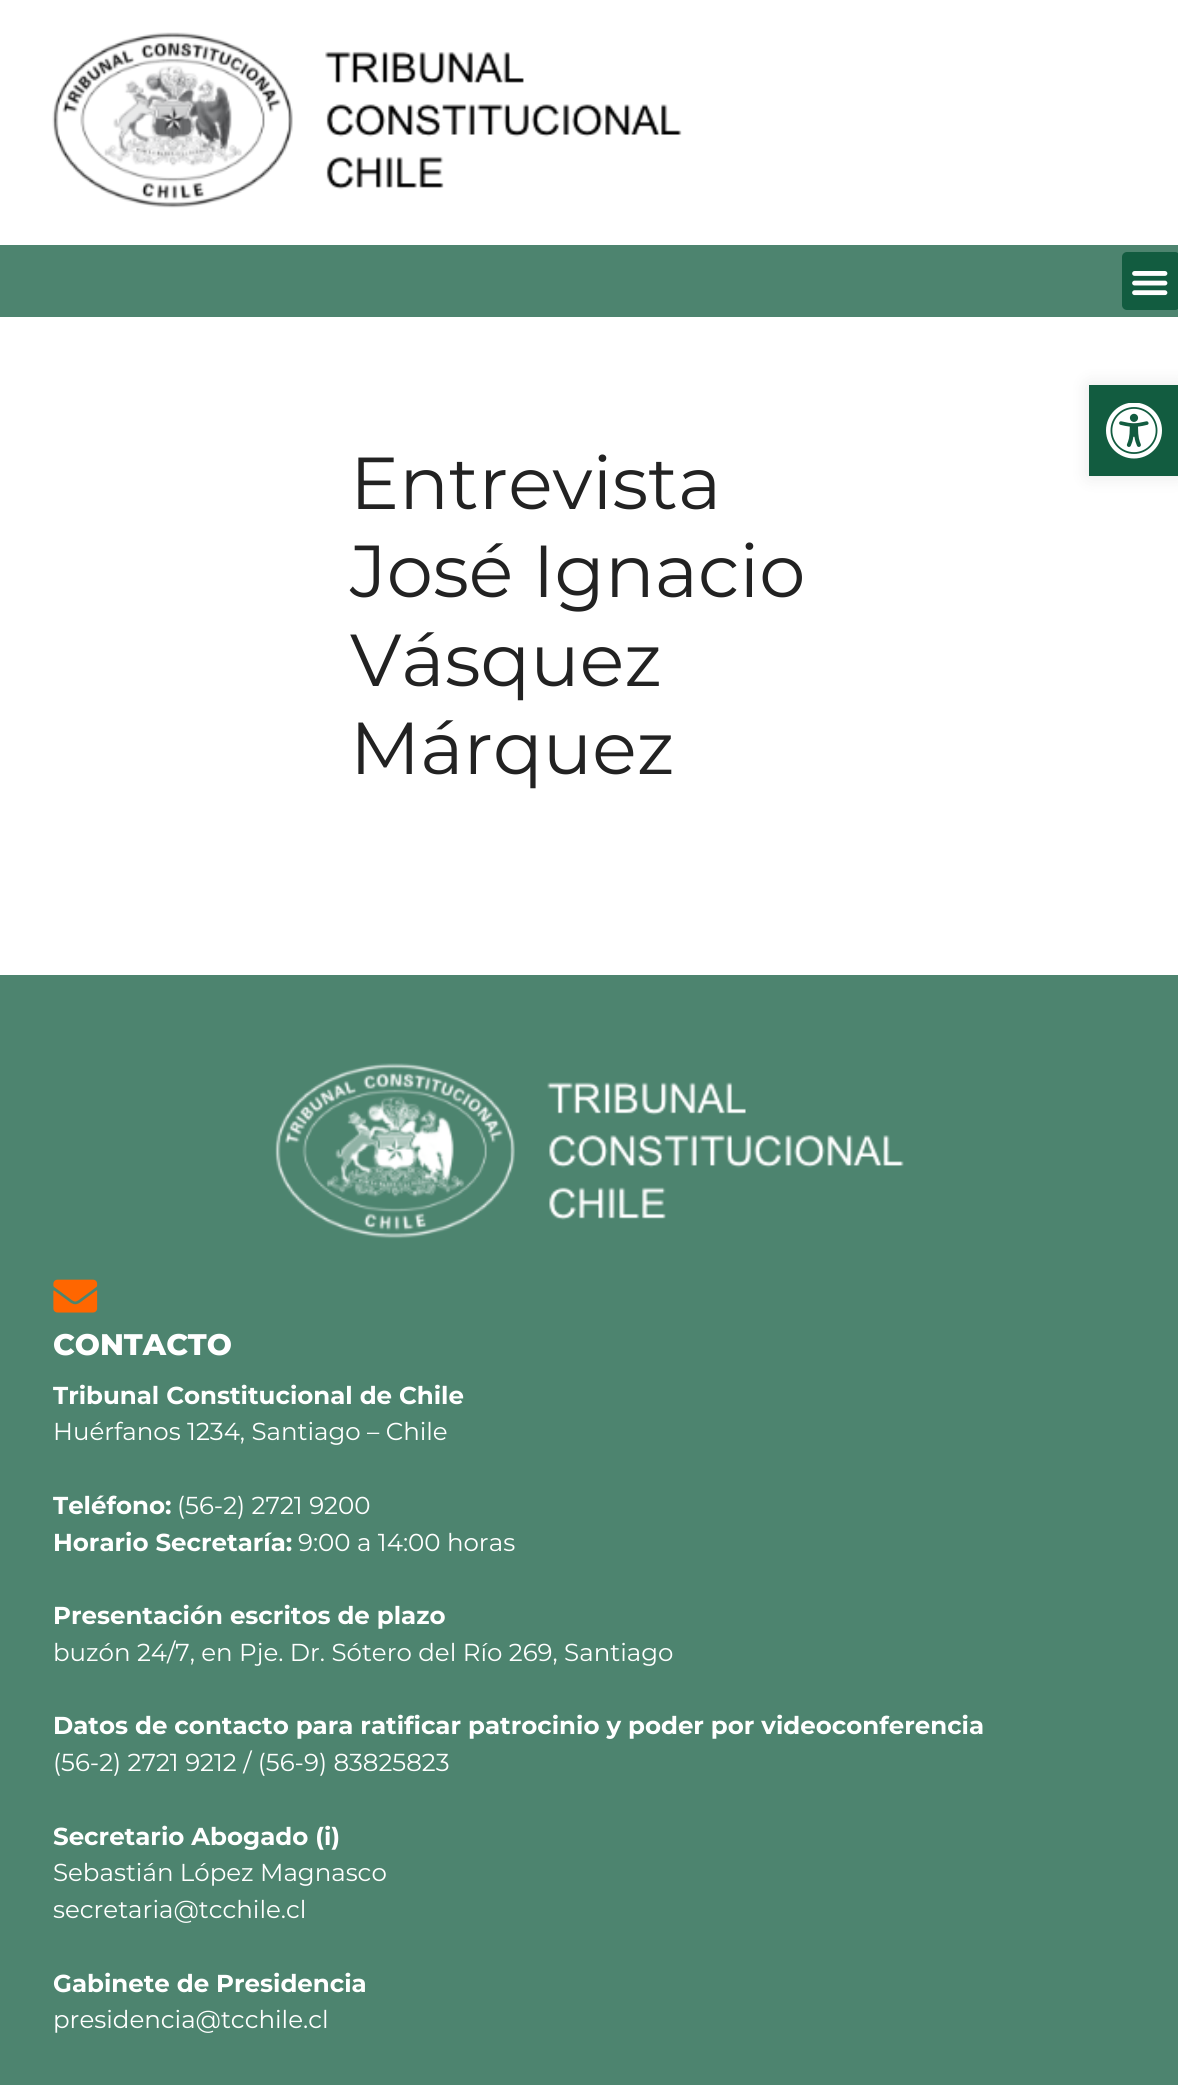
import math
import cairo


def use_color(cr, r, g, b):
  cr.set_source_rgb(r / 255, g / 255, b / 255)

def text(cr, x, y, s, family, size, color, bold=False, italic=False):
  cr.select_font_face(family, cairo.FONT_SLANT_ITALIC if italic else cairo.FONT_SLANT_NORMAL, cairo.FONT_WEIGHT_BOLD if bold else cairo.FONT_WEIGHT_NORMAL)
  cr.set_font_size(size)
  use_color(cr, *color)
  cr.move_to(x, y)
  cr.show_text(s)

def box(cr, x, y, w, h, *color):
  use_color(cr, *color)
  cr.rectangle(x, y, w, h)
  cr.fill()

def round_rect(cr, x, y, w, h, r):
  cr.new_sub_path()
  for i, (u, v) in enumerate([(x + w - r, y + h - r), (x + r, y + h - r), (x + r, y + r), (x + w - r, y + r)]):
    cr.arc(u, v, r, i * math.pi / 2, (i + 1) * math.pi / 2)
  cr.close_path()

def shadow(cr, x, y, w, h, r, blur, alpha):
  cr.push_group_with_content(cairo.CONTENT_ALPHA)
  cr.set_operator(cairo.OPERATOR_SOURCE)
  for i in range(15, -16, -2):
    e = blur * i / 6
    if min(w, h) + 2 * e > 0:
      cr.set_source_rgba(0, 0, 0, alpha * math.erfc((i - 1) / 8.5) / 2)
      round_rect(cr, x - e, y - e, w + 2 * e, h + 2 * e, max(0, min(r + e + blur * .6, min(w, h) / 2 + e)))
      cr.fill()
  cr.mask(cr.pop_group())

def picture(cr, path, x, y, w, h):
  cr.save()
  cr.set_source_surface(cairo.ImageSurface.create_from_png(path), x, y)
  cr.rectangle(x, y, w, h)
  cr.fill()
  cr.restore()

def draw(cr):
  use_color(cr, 255, 255, 255)
  cr.paint()
  box(cr, 0, 245, 1178, 72, 77, 132, 111)
  picture(cr, "img_01.png", 52, 32, 630, 176)
  use_color(cr, 18, 92, 64)
  round_rect(cr, 1122, 252, 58, 58, 5)
  cr.fill()
  picture(cr, "img_02.png", 1132, 271, 36, 25)
  use_color(cr, 0, 0, 0)
  shadow(cr, 1089, 385, 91, 91, 0, 9, 0.1)
  box(cr, 1089, 385, 89, 91, 18, 92, 64)
  picture(cr, "img_03.png", 1106, 403, 56, 56)
  box(cr, 0, 975, 1178, 1110, 77, 132, 111)
  picture(cr, "img_04.png", 275, 1063, 629, 176)
  picture(cr, "img_05.png", 53, 1279, 45, 34)
  text(cr, 350, 509, "Entrevista", "Montserrat", 73.5, (34, 34, 34))
  text(cr, 350, 597, "José Ignacio", "Montserrat", 73.5, (34, 34, 34))
  text(cr, 350, 686, "Vásquez", "Montserrat", 73.5, (34, 34, 34))
  text(cr, 350, 774, "Márquez", "Montserrat", 73.5, (34, 34, 34))
  text(cr, 53, 1355, "CONTACTO", "Montserrat ExtraBold", 29.75, (255, 255, 255))
  text(cr, 53, 1404, "Tribunal Constitucional de Chile", "Montserrat", 24.5, (255, 255, 255), bold=True)
  text(cr, 53, 1440, "Huérfanos 1234, Santiago – Chile", "Montserrat", 24.5, (255, 255, 255))
  text(cr, 53, 1514, "Teléfono:", "Montserrat", 24.5, (255, 255, 255), bold=True)
  text(cr, 177, 1514, "(56-2) 2721 9200", "Montserrat", 24.5, (255, 255, 255))
  text(cr, 53, 1551, "Horario Secretaría:", "Montserrat", 24.5, (255, 255, 255), bold=True)
  text(cr, 298, 1551, "9:00 a 14:00 horas", "Montserrat", 24.5, (255, 255, 255))
  text(cr, 53, 1624, "Presentación escritos de plazo", "Montserrat", 24.5, (255, 255, 255), bold=True)
  text(cr, 53, 1661, "buzón 24/7, en Pje. Dr. Sótero del Río 269, Santiago", "Montserrat", 24.5, (255, 255, 255))
  text(cr, 53, 1734, "Datos de contacto para ratificar patrocinio y poder por videoconferencia", "Montserrat", 24.5, (255, 255, 255), bold=True)
  text(cr, 53, 1771, "(56-2) 2721 9212 / (56-9) 83825823", "Montserrat", 24.5, (255, 255, 255))
  text(cr, 53, 1845, "Secretario Abogado (i)", "Montserrat", 24.5, (255, 255, 255), bold=True)
  text(cr, 53, 1881, "Sebastián López Magnasco", "Montserrat", 24.5, (255, 255, 255))
  text(cr, 53, 1918, "secretaria@tcchile.cl", "Montserrat", 24.5, (255, 255, 255))
  text(cr, 53, 1992, "Gabinete de Presidencia", "Montserrat", 24.5, (255, 255, 255), bold=True)
  text(cr, 53, 2028, "presidencia@tcchile.cl", "Montserrat", 24.5, (255, 255, 255))


surface = cairo.ImageSurface(cairo.FORMAT_RGB24, 1178, 2085)
cr = cairo.Context(surface)
options = cairo.FontOptions()
options.set_hint_metrics(cairo.HINT_METRICS_OFF)
options.set_hint_style(cairo.HINT_STYLE_NONE)
cr.set_font_options(options)
cr.set_miter_limit(4)
draw(cr)
surface.write_to_png("out.png")
